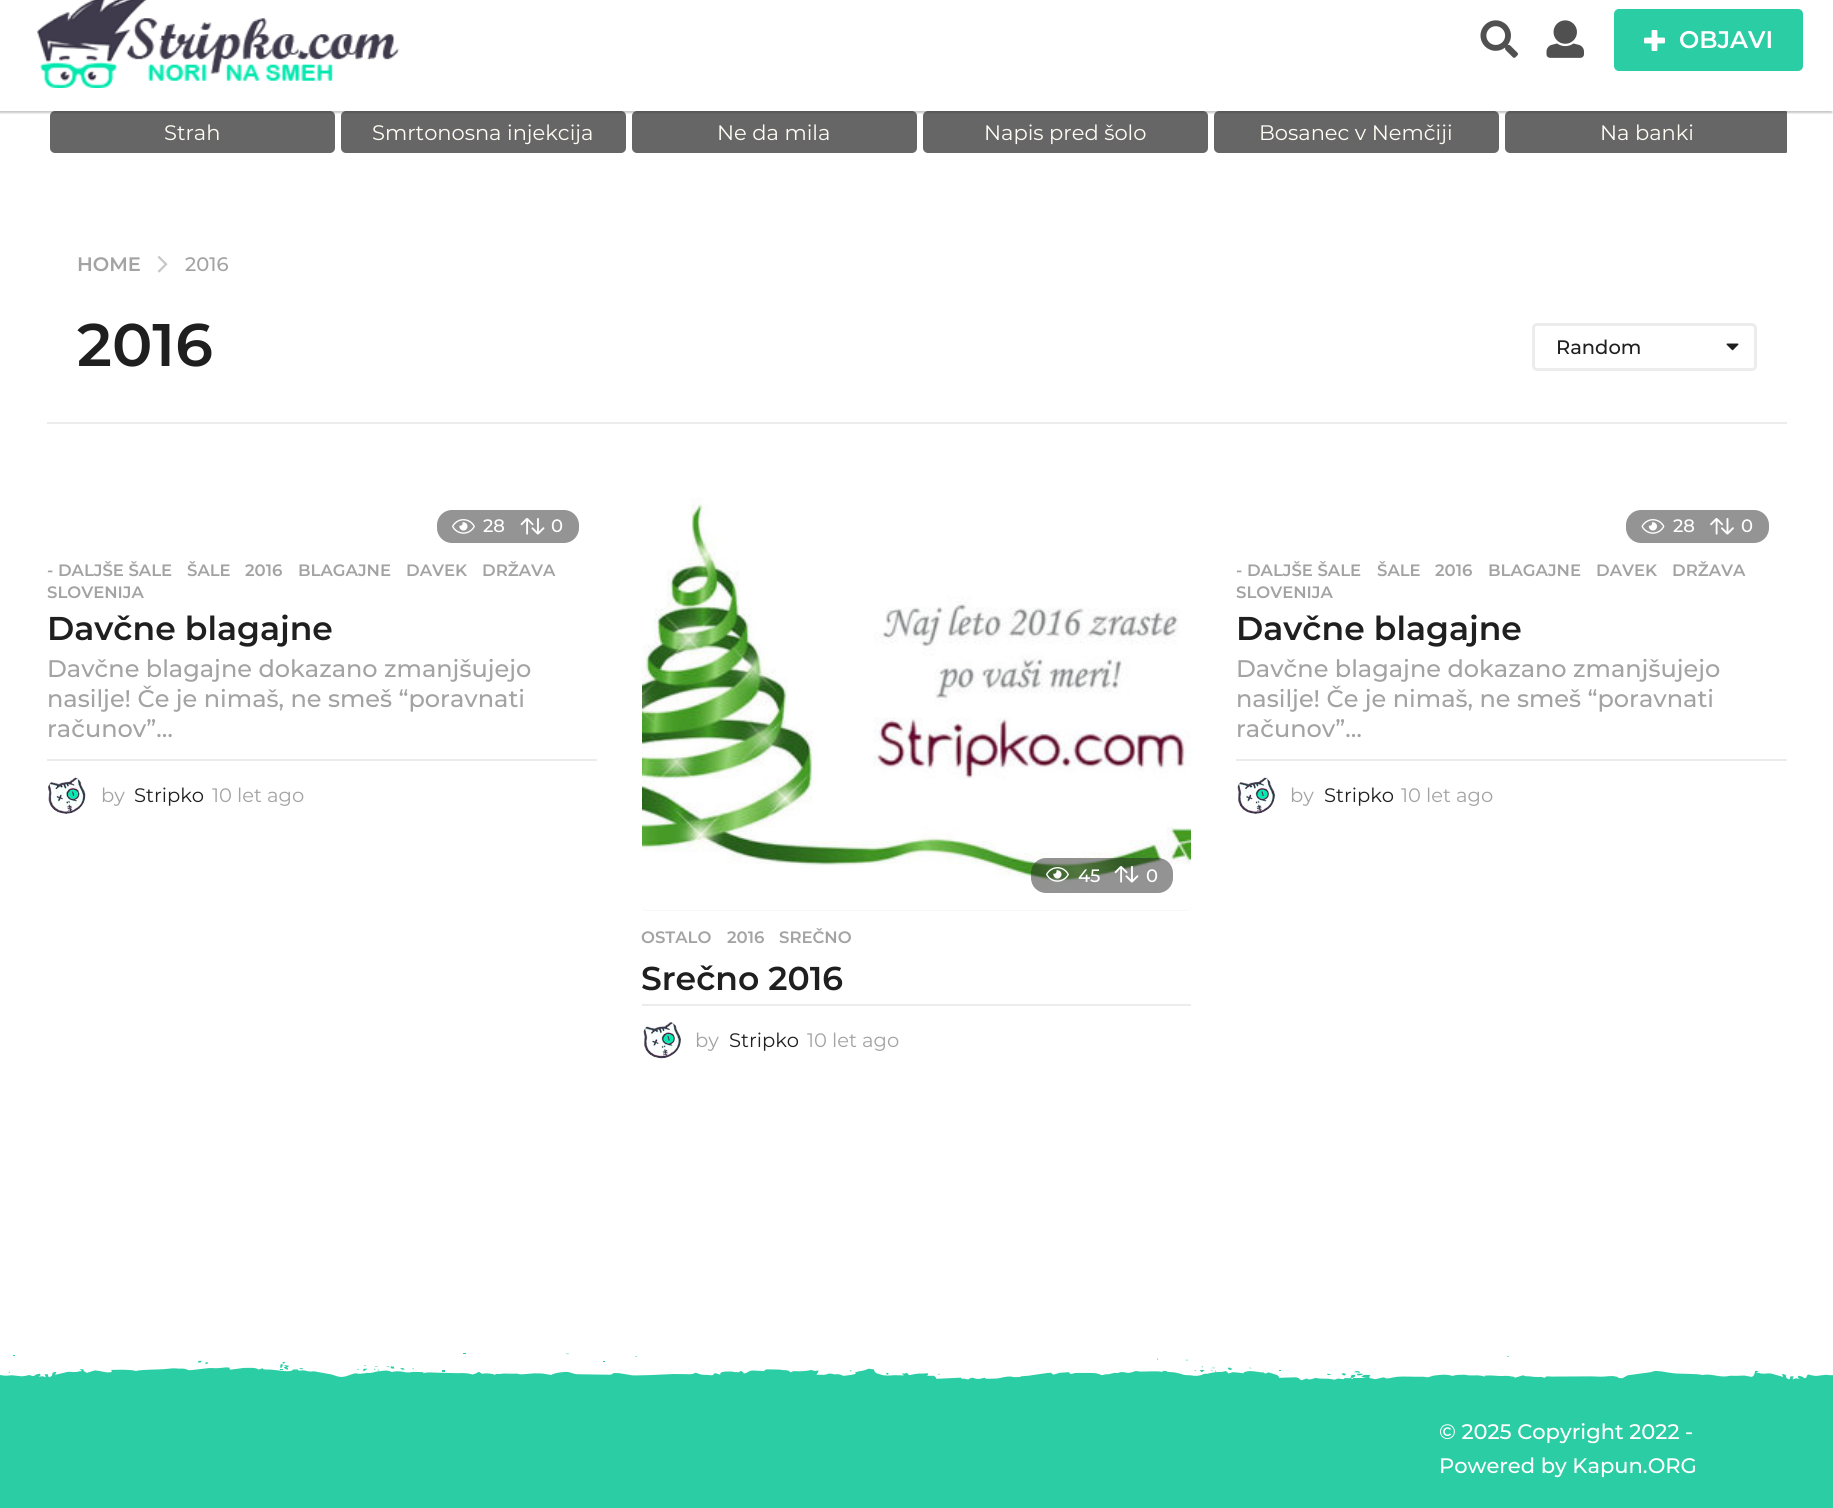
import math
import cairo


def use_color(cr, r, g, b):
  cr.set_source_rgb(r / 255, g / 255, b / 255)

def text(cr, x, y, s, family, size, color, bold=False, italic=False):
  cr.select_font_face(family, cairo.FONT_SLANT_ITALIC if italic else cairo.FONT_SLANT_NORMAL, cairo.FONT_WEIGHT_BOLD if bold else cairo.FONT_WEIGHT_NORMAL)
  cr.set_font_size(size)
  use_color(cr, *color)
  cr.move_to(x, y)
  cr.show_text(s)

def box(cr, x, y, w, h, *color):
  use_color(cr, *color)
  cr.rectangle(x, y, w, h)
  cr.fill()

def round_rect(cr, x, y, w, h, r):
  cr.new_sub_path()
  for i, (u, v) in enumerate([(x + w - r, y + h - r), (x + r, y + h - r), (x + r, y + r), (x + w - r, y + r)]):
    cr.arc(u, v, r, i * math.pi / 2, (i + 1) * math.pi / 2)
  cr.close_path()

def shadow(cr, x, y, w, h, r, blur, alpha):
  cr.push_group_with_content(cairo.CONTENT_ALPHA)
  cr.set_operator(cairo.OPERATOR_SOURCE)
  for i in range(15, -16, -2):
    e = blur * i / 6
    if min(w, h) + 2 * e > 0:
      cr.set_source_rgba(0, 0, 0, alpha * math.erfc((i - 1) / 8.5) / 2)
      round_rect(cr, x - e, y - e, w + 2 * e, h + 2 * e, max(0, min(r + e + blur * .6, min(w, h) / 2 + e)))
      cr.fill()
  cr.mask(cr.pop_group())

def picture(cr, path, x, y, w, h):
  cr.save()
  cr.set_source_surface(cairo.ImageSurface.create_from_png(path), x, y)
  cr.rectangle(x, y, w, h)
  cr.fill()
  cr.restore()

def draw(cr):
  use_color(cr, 255, 255, 255)
  cr.paint()
  use_color(cr, 102, 102, 102)
  round_rect(cr, 50, 111, 285, 42, 5)
  cr.fill()
  round_rect(cr, 341, 111, 285, 42, 5)
  cr.fill()
  round_rect(cr, 632, 111, 285, 42, 5)
  cr.fill()
  round_rect(cr, 923, 111, 285, 42, 5)
  cr.fill()
  round_rect(cr, 1214, 111, 285, 42, 5)
  cr.fill()
  cr.save()
  round_rect(cr, 1505, 111, 285, 42, 5)
  cr.clip()
  cr.new_path()
  cr.move_to(1510, 111)
  cr.line_to(1787, 111)
  cr.line_to(1787, 153)
  cr.line_to(1510, 153)
  cr.curve_to(1507, 153, 1505, 151, 1505, 148)
  cr.line_to(1505, 116)
  cr.curve_to(1505, 113, 1507, 111, 1510, 111)
  cr.close_path()
  cr.fill()
  cr.restore()
  cr.save()
  cr.rectangle(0, 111, 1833, 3)
  cr.clip()
  use_color(cr, 42, 42, 42)
  shadow(cr, -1, -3, 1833, 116, 0, 1, 0.27)
  cr.restore()
  picture(cr, "img_01.png", 37, 0, 363, 88)
  picture(cr, "img_02.png", 1480, 20, 38, 38)
  picture(cr, "img_03.png", 1546, 20, 38, 38)
  use_color(cr, 43, 205, 164)
  round_rect(cr, 1614, 9, 189, 62, 5)
  cr.fill()
  picture(cr, "img_04.png", 1644, 30, 21, 21)
  box(cr, 47, 422, 1740, 2, 236, 236, 236)
  picture(cr, "img_05.png", 157, 256, 11, 17)
  round_rect(cr, 1533.5, 324.5, 222, 45, 3.5)
  cr.set_line_width(3)
  cr.stroke()
  picture(cr, "img_06.png", 1726, 343, 13, 8)
  use_color(cr, 148, 148, 148)
  round_rect(cr, 437, 510, 142, 33, 15)
  cr.fill()
  picture(cr, "img_07.png", 452, 519, 23, 15)
  picture(cr, "img_08.png", 520, 518, 25, 17)
  box(cr, 47, 759, 550, 2, 236, 236, 236)
  picture(cr, "img_09.png", 48, 777, 38, 37)
  use_color(cr, 148, 148, 148)
  round_rect(cr, 1626, 510, 143, 33, 15)
  cr.fill()
  picture(cr, "img_10.png", 1641, 519, 24, 15)
  picture(cr, "img_11.png", 1710, 518, 24, 17)
  box(cr, 1236, 759, 551, 2, 236, 236, 236)
  picture(cr, "img_12.png", 1237, 777, 38, 37)
  use_color(cr, 247, 247, 247)
  round_rect(cr, 642, 498, 549, 413, 5)
  cr.fill()
  picture(cr, "img_13.png", 642, 498, 549, 412)
  cr.set_source_rgba(0.157, 0.157, 0.157, 0.5)
  round_rect(cr, 1031, 858, 142, 35, 15)
  cr.fill()
  picture(cr, "img_14.png", 1046, 867, 23, 15)
  picture(cr, "img_15.png", 1114, 866, 25, 17)
  box(cr, 642, 1004, 549, 2, 236, 236, 236)
  picture(cr, "img_16.png", 643, 1022, 38, 37)
  box(cr, 0, 1386, 1833, 122, 43, 205, 164)
  picture(cr, "img_17.png", 0, 1353, 1833, 33)
  text(cr, 1679, 48, "OBJAVI", "Montserrat SemiBold", 24, (255, 255, 255))
  text(cr, 164, 140, "Strah", "Montserrat", 21, (255, 252, 244))
  text(cr, 372, 140, "Smrtonosna injekcija", "Montserrat", 21, (255, 252, 244))
  text(cr, 717, 140, "Ne da mila", "Montserrat", 21, (255, 252, 244))
  text(cr, 984, 140, "Napis pred šolo", "Montserrat", 21, (255, 252, 244))
  text(cr, 1259, 140, "Bosanec v Nemčiji", "Montserrat", 21, (255, 252, 244))
  text(cr, 1600, 140, "Na banki", "Montserrat", 21, (255, 252, 244))
  text(cr, 77, 271, "HOME", "Montserrat SemiBold", 19.5, (163, 163, 163))
  text(cr, 185, 271, "2016", "Montserrat Medium", 19.5, (163, 163, 163))
  text(cr, 77, 366, "2016", "Montserrat SemiBold", 60, (31, 31, 31))
  text(cr, 1556, 354, "Random", "Montserrat Medium", 19.5, (31, 31, 31))
  text(cr, 483, 532, "28", "Montserrat Medium", 18, (255, 255, 255))
  text(cr, 551, 532, "0", "Montserrat Medium", 18, (255, 255, 255))
  text(cr, 47, 576, "- DALJŠE ŠALE", "Montserrat SemiBold", 16.5, (163, 163, 163))
  text(cr, 187, 576, "ŠALE", "Montserrat SemiBold", 16.5, (163, 163, 163))
  text(cr, 245, 576, "2016", "Montserrat SemiBold", 16.5, (163, 163, 163))
  text(cr, 298, 576, "BLAGAJNE", "Montserrat SemiBold", 16.5, (163, 163, 163))
  text(cr, 406, 576, "DAVEK", "Montserrat SemiBold", 16.5, (163, 163, 163))
  text(cr, 482, 576, "DRŽAVA", "Montserrat SemiBold", 16.5, (163, 163, 163))
  text(cr, 47, 598, "SLOVENIJA", "Montserrat SemiBold", 16.5, (163, 163, 163))
  text(cr, 47, 640, "Davčne blagajne", "Montserrat SemiBold", 33, (31, 31, 31))
  text(cr, 47, 677, "Davčne blagajne dokazano zmanjšujejo", "Montserrat Medium", 24, (163, 163, 163))
  text(cr, 47, 707, "nasilje! Če je nimaš, ne smeš “poravnati", "Montserrat Medium", 24, (163, 163, 163))
  text(cr, 47, 737, "računov”…", "Montserrat Medium", 24, (163, 163, 163))
  text(cr, 101, 802, "by", "Montserrat", 19.5, (163, 163, 163))
  text(cr, 134, 802, "Stripko", "Montserrat", 19.5, (31, 31, 31))
  text(cr, 212, 802, "10 let ago", "Montserrat", 19.5, (163, 163, 163))
  text(cr, 1673, 532, "28", "Montserrat Medium", 18, (255, 255, 255))
  text(cr, 1741, 532, "0", "Montserrat Medium", 18, (255, 255, 255))
  text(cr, 1236, 576, "- DALJŠE ŠALE", "Montserrat SemiBold", 16.5, (163, 163, 163))
  text(cr, 1377, 576, "ŠALE", "Montserrat SemiBold", 16.5, (163, 163, 163))
  text(cr, 1435, 576, "2016", "Montserrat SemiBold", 16.5, (163, 163, 163))
  text(cr, 1488, 576, "BLAGAJNE", "Montserrat SemiBold", 16.5, (163, 163, 163))
  text(cr, 1596, 576, "DAVEK", "Montserrat SemiBold", 16.5, (163, 163, 163))
  text(cr, 1672, 576, "DRŽAVA", "Montserrat SemiBold", 16.5, (163, 163, 163))
  text(cr, 1236, 598, "SLOVENIJA", "Montserrat SemiBold", 16.5, (163, 163, 163))
  text(cr, 1236, 640, "Davčne blagajne", "Montserrat SemiBold", 33, (31, 31, 31))
  text(cr, 1236, 677, "Davčne blagajne dokazano zmanjšujejo", "Montserrat Medium", 24, (163, 163, 163))
  text(cr, 1236, 707, "nasilje! Če je nimaš, ne smeš “poravnati", "Montserrat Medium", 24, (163, 163, 163))
  text(cr, 1236, 737, "računov”…", "Montserrat Medium", 24, (163, 163, 163))
  text(cr, 1290, 802, "by", "Montserrat", 19.5, (163, 163, 163))
  text(cr, 1324, 802, "Stripko", "Montserrat", 19.5, (31, 31, 31))
  text(cr, 1401, 802, "10 let ago", "Montserrat", 19.5, (163, 163, 163))
  text(cr, 1078, 882, "45", "Montserrat Medium", 18, (255, 255, 255))
  text(cr, 1146, 882, "0", "Montserrat Medium", 18, (255, 255, 255))
  text(cr, 641, 943, "OSTALO", "Montserrat SemiBold", 16.5, (163, 163, 163))
  text(cr, 727, 943, "2016", "Montserrat SemiBold", 16.5, (163, 163, 163))
  text(cr, 779, 943, "SREČNO", "Montserrat SemiBold", 16.5, (163, 163, 163))
  text(cr, 641, 990, "Srečno 2016", "Montserrat SemiBold", 33, (31, 31, 31))
  text(cr, 695, 1047, "by", "Montserrat", 19.5, (163, 163, 163))
  text(cr, 729, 1047, "Stripko", "Montserrat", 19.5, (31, 31, 31))
  text(cr, 807, 1047, "10 let ago", "Montserrat", 19.5, (163, 163, 163))
  text(cr, 1439, 1439, "© 2025 Copyright 2022 -", "Montserrat Medium", 21, (255, 255, 255))
  text(cr, 1439, 1473, "Powered by Kapun.ORG", "Montserrat Medium", 21, (255, 255, 255))


surface = cairo.ImageSurface(cairo.FORMAT_RGB24, 1833, 1508)
cr = cairo.Context(surface)
options = cairo.FontOptions()
options.set_hint_metrics(cairo.HINT_METRICS_OFF)
options.set_hint_style(cairo.HINT_STYLE_NONE)
cr.set_font_options(options)
cr.set_miter_limit(4)
draw(cr)
surface.write_to_png("out.png")
